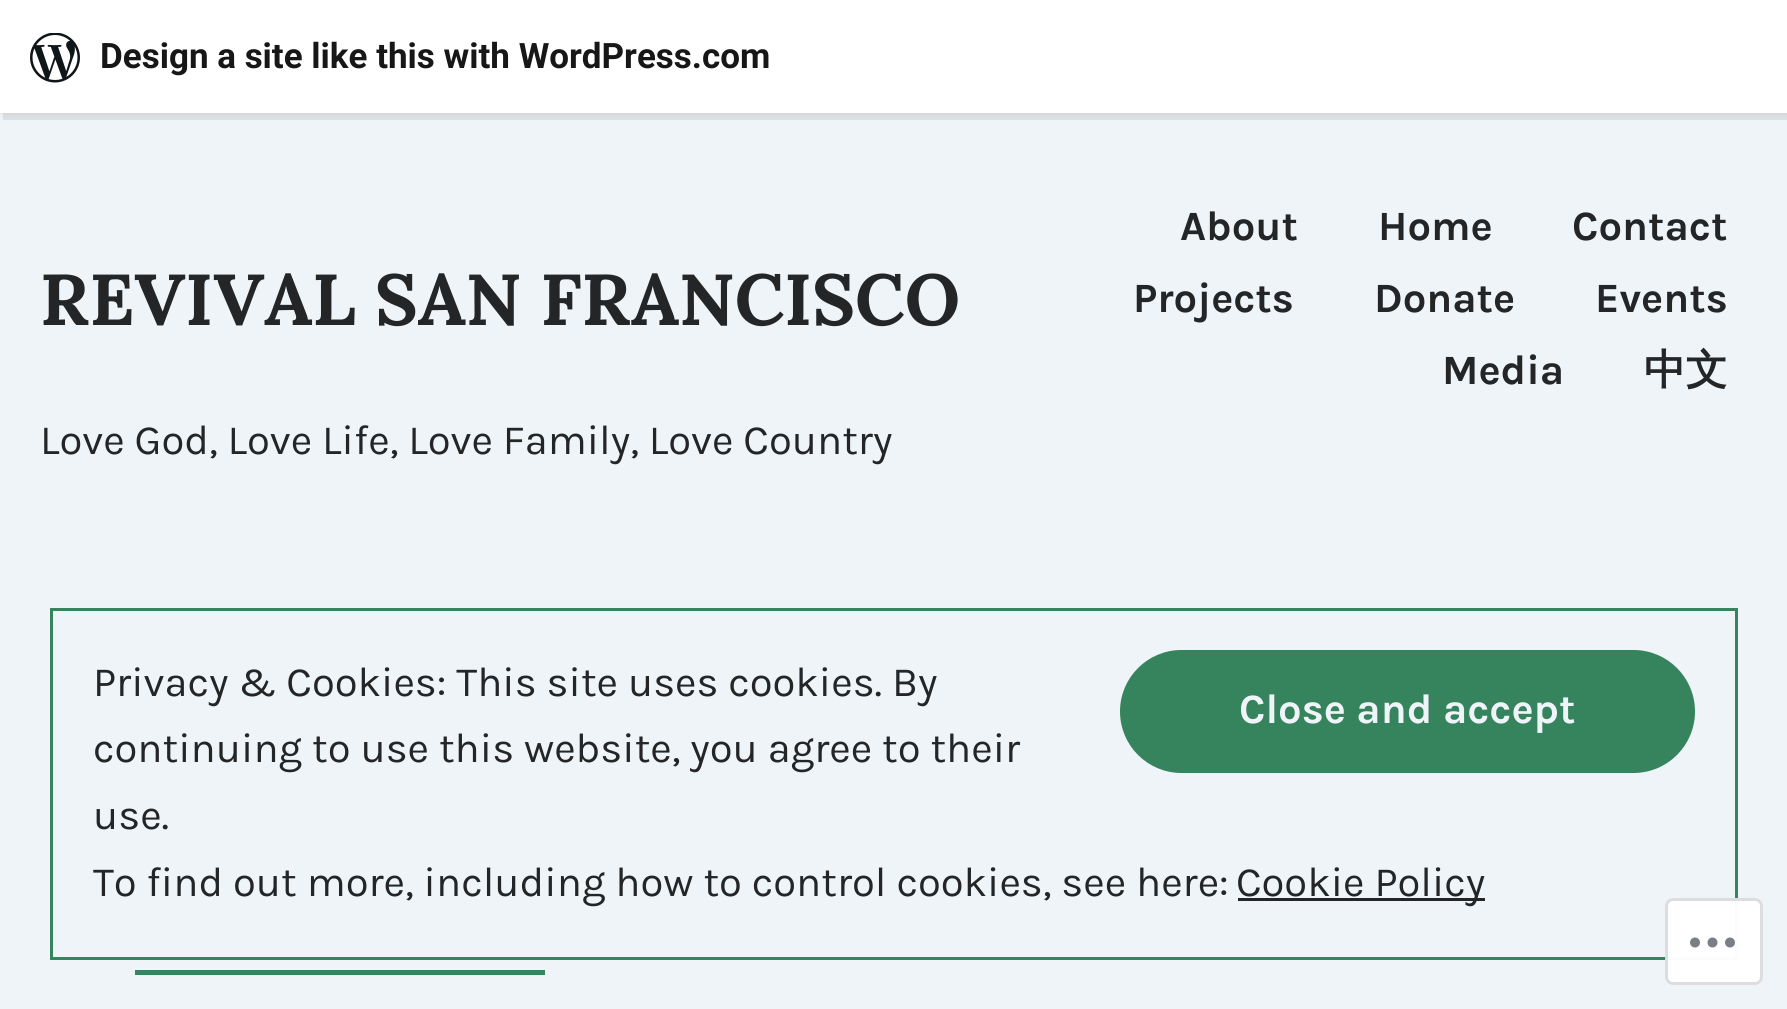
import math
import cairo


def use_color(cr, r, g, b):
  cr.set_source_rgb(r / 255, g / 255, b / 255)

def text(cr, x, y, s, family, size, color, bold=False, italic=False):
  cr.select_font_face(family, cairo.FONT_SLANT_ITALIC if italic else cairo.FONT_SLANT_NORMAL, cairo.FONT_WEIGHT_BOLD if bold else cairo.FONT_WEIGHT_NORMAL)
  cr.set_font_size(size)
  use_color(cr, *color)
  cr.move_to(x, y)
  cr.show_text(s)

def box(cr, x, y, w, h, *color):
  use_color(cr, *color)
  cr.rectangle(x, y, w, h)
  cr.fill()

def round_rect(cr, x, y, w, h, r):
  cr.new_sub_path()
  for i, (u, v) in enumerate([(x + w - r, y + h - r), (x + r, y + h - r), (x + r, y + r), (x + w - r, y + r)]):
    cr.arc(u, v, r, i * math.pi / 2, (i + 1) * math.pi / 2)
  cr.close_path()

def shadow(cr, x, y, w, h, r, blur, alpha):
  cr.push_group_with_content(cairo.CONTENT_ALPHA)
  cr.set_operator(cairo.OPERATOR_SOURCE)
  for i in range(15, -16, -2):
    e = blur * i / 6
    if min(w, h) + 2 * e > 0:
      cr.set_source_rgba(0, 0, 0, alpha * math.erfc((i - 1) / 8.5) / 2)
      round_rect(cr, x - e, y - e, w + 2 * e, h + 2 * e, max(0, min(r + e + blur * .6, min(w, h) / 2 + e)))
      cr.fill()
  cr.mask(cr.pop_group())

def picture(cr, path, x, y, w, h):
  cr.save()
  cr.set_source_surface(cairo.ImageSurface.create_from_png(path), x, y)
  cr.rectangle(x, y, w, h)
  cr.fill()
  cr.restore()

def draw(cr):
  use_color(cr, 238, 244, 247)
  cr.paint()
  use_color(cr, 0, 0, 0)
  shadow(cr, 0, 3, 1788, 112, 0, 2.5, 0.05)
  cr.set_source_rgba(0, 0, 0, 0.08)
  cr.new_path()
  cr.move_to(3, 112)
  cr.line_to(3, 120)
  cr.line_to(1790, 120)
  cr.line_to(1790, 8)
  cr.line_to(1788, 8)
  cr.line_to(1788, 112)
  cr.close_path()
  cr.fill()
  box(cr, 0, 0, 1787, 113, 255, 255, 255)
  picture(cr, "img_01.png", 30, 33, 50, 50)
  box(cr, 135, 970, 410, 5, 53, 132, 93)
  cr.rectangle(51.5, 609.5, 1685, 349)
  cr.set_line_width(3)
  cr.stroke()
  round_rect(cr, 1120, 650, 575, 123, 61.5)
  cr.fill()
  box(cr, 1238, 898, 247, 3, 36, 37, 39)
  cr.set_source_rgba(1, 1, 1, 0.98)
  round_rect(cr, 1665, 898, 98, 87, 8)
  cr.fill()
  round_rect(cr, 1666.5, 899.5, 95, 84, 6.5)
  cr.set_source_rgba(0.863, 0.863, 0.871, 0.98)
  cr.stroke()
  picture(cr, "img_02.png", 1690, 937, 45, 11)
  text(cr, 100, 68, "Design a site like this with WordPress.com", "Roboto", 35, (23, 23, 23), bold=True)
  text(cr, 40, 325, "REVIVAL SAN FRANCISCO", "Lora", 72, (36, 37, 39), bold=True)
  text(cr, 1180, 240, "About", "Karla", 41.7, (36, 37, 39), bold=True)
  text(cr, 1378, 240, "Home", "Karla", 41.7, (36, 37, 39), bold=True)
  text(cr, 1572, 240, "Contact", "Karla", 41.7, (36, 37, 39), bold=True)
  text(cr, 1133, 312, "Projects", "Karla", 41.7, (36, 37, 39), bold=True)
  text(cr, 1374, 312, "Donate", "Karla", 41.7, (36, 37, 39), bold=True)
  text(cr, 1595, 312, "Events", "Karla", 41.7, (36, 37, 39), bold=True)
  text(cr, 1442, 384, "Media", "Karla", 41.7, (36, 37, 39), bold=True)
  text(cr, 1644, 384, "中文", "WenQuanYi Zen Hei", 41.7, (36, 37, 39), bold=True)
  text(cr, 40, 454, "Love God, Love Life, Love Family, Love Country", "Karla", 41.7, (36, 37, 39))
  text(cr, 93, 696, "Privacy & Cookies: This site uses cookies. By", "Karla", 41.7, (36, 37, 39))
  text(cr, 1239, 723, "Close and accept", "Karla", 41.7, (238, 244, 247), bold=True)
  text(cr, 93, 762, "continuing to use this website, you agree to their", "Karla", 41.7, (36, 37, 39))
  text(cr, 93, 829, "use.", "Karla", 41.7, (36, 37, 39))
  text(cr, 93, 896, "To find out more, including how to control cookies, see here:", "Karla", 41.7, (36, 37, 39))
  text(cr, 1236, 896, "Cookie Policy", "Karla", 41.7, (36, 37, 39))


surface = cairo.ImageSurface(cairo.FORMAT_RGB24, 1787, 1009)
cr = cairo.Context(surface)
options = cairo.FontOptions()
options.set_hint_metrics(cairo.HINT_METRICS_OFF)
options.set_hint_style(cairo.HINT_STYLE_NONE)
cr.set_font_options(options)
cr.set_miter_limit(4)
draw(cr)
surface.write_to_png("out.png")
